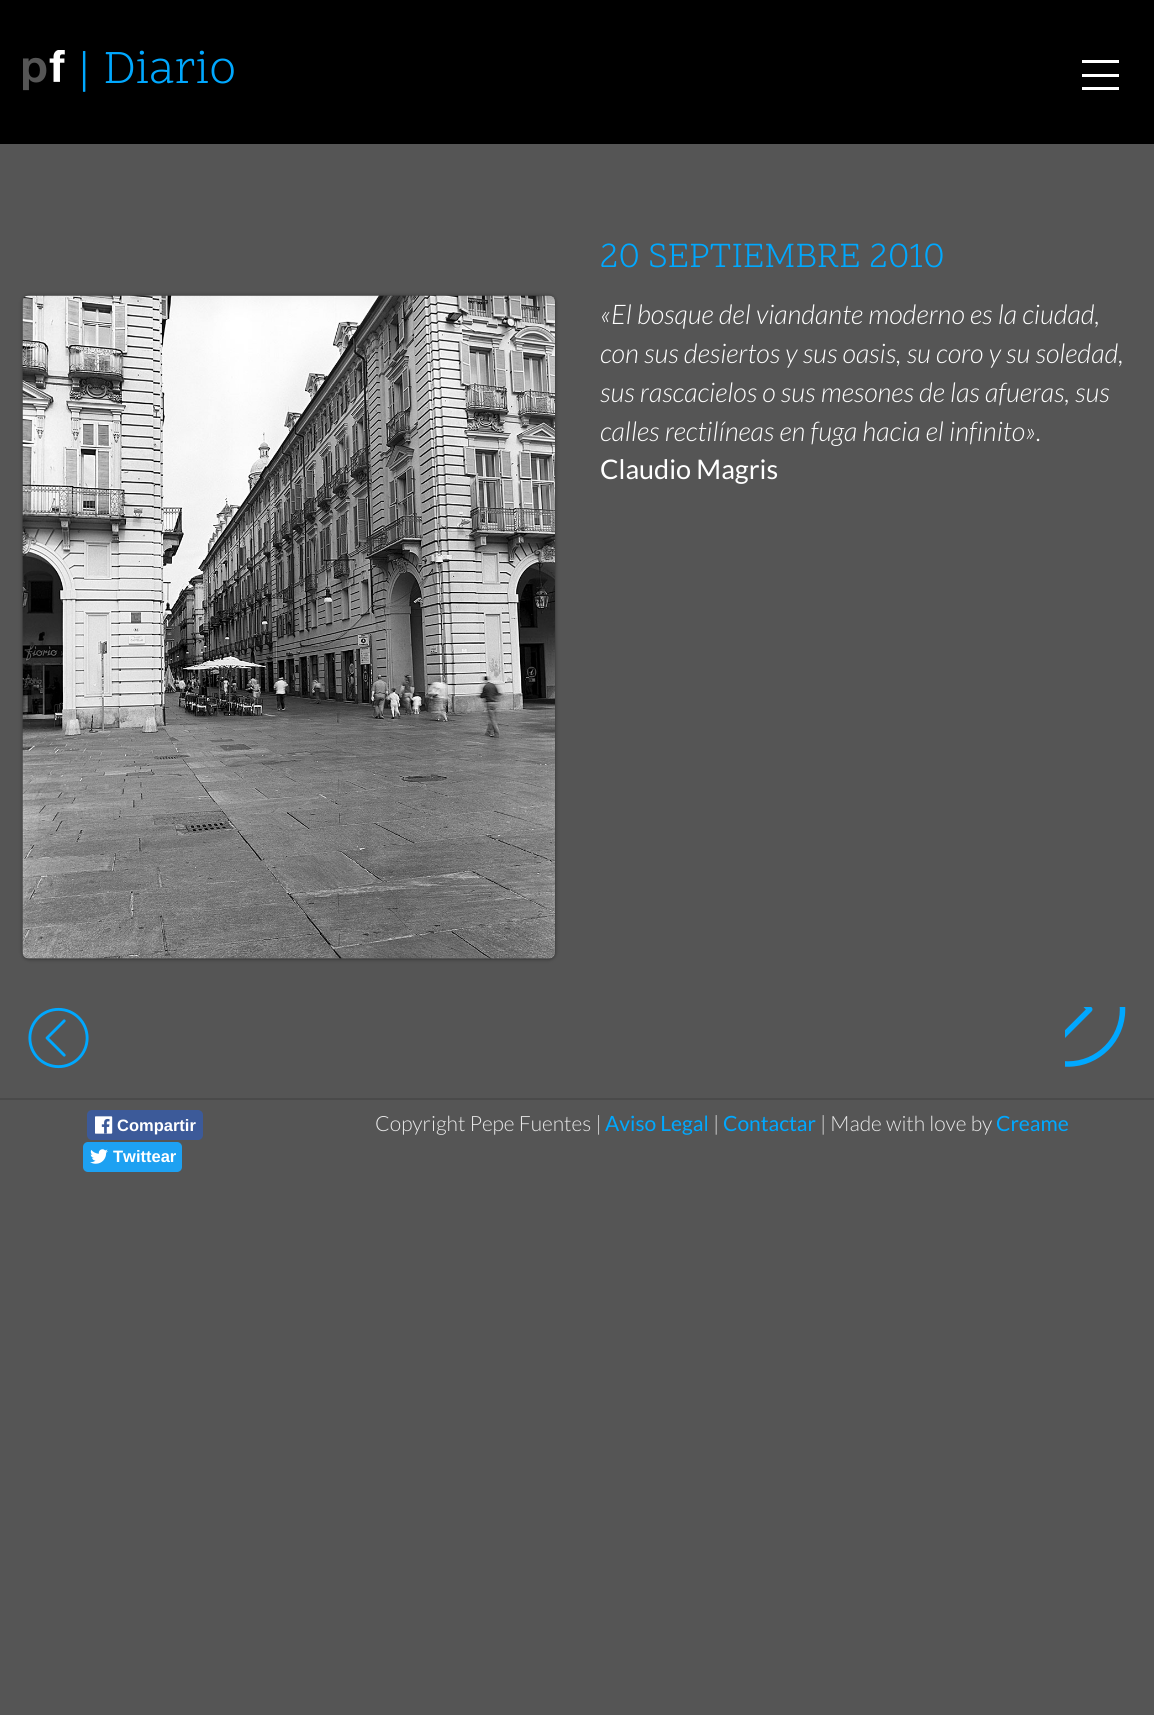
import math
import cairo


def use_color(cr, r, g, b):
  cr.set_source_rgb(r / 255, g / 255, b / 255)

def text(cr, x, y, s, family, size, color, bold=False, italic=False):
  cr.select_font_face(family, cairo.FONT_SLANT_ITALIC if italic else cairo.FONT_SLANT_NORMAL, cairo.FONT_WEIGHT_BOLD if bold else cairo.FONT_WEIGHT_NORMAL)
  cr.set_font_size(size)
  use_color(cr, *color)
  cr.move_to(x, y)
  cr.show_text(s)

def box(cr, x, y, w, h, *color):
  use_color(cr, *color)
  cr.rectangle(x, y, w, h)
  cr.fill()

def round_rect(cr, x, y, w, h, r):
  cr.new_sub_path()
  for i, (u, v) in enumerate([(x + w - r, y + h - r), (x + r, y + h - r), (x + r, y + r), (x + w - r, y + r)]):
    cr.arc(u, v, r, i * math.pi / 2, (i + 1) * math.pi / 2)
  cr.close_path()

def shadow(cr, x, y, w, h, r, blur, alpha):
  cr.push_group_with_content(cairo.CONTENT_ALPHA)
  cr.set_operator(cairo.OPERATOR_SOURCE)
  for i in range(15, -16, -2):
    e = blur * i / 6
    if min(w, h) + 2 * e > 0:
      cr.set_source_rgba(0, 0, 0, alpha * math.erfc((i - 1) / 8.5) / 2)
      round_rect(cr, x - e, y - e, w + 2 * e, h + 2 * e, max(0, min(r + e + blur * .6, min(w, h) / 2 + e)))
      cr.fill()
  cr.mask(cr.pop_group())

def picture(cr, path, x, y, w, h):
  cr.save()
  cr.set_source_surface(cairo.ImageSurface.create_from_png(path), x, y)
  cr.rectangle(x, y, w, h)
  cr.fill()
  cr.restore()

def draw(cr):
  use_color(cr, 85, 85, 85)
  cr.paint()
  box(cr, 0, 0, 1154, 144, 0, 0, 0)
  picture(cr, "img_01.png", 23, 50, 42, 41)
  box(cr, 1082, 60, 37, 3, 255, 255, 255)
  box(cr, 1082, 74, 37, 3, 255, 255, 255)
  box(cr, 1082, 87, 37, 3, 255, 255, 255)
  use_color(cr, 0, 0, 0)
  shadow(cr, 23, 296, 532, 663, 6, 2, 0.5)
  use_color(cr, 74, 74, 74)
  round_rect(cr, 23, 296, 532, 663, 6)
  cr.fill()
  picture(cr, "img_02.png", 22, 295, 533, 664)
  picture(cr, "img_03.png", 28, 1007, 61, 62)
  picture(cr, "img_04.png", 1065, 1007, 61, 60)
  box(cr, 0, 1098, 1154, 2, 74, 74, 74)
  use_color(cr, 60, 90, 153)
  round_rect(cr, 87, 1110, 116, 30, 5)
  cr.fill()
  picture(cr, "img_05.png", 95, 1116, 18, 18)
  use_color(cr, 29, 161, 242)
  round_rect(cr, 83, 1142, 99, 30, 5)
  cr.fill()
  picture(cr, "img_06.png", 90, 1149, 18, 15)
  text(cr, 77, 83, "| Diario", "Scope One", 48, (0, 168, 255))
  text(cr, 600, 267, "20 SEPTIEMBRE 2010", "Scope One", 36, (0, 168, 255))
  text(cr, 600, 324, "«El bosque del viandante moderno es la ciudad,", "Lato Light", 27, (255, 255, 255), italic=True)
  text(cr, 600, 363, "con sus desiertos y sus oasis, su coro y su soledad,", "Lato Light", 27, (255, 255, 255), italic=True)
  text(cr, 600, 402, "sus rascacielos o sus mesones de las afueras, sus", "Lato Light", 27, (255, 255, 255), italic=True)
  text(cr, 600, 441, "calles rectilíneas en fuga hacia el infinito».", "Lato Light", 27, (255, 255, 255), italic=True)
  text(cr, 600, 479, "Claudio Magris", "Lato", 27, (255, 255, 255))
  text(cr, 117, 1131, "Compartir", "Liberation Sans", 16.5, (255, 255, 255), bold=True)
  text(cr, 113, 1162, "Twittear", "Liberation Sans", 16.5, (255, 255, 255), bold=True)
  text(cr, 375, 1131, "Copyright Pepe Fuentes |", "Lato Light", 21, (233, 233, 233))
  text(cr, 605, 1131, "Aviso Legal", "Lato", 21, (0, 168, 255))
  text(cr, 713, 1131, "|", "Lato Light", 21, (233, 233, 233))
  text(cr, 723, 1131, "Contactar", "Lato", 21, (0, 168, 255))
  text(cr, 820, 1131, "| Made with love by", "Lato Light", 21, (233, 233, 233))
  text(cr, 996, 1131, "Creame", "Lato", 21, (0, 168, 255))


surface = cairo.ImageSurface(cairo.FORMAT_RGB24, 1154, 1715)
cr = cairo.Context(surface)
options = cairo.FontOptions()
options.set_hint_metrics(cairo.HINT_METRICS_OFF)
options.set_hint_style(cairo.HINT_STYLE_NONE)
cr.set_font_options(options)
cr.set_miter_limit(4)
draw(cr)
surface.write_to_png("out.png")
